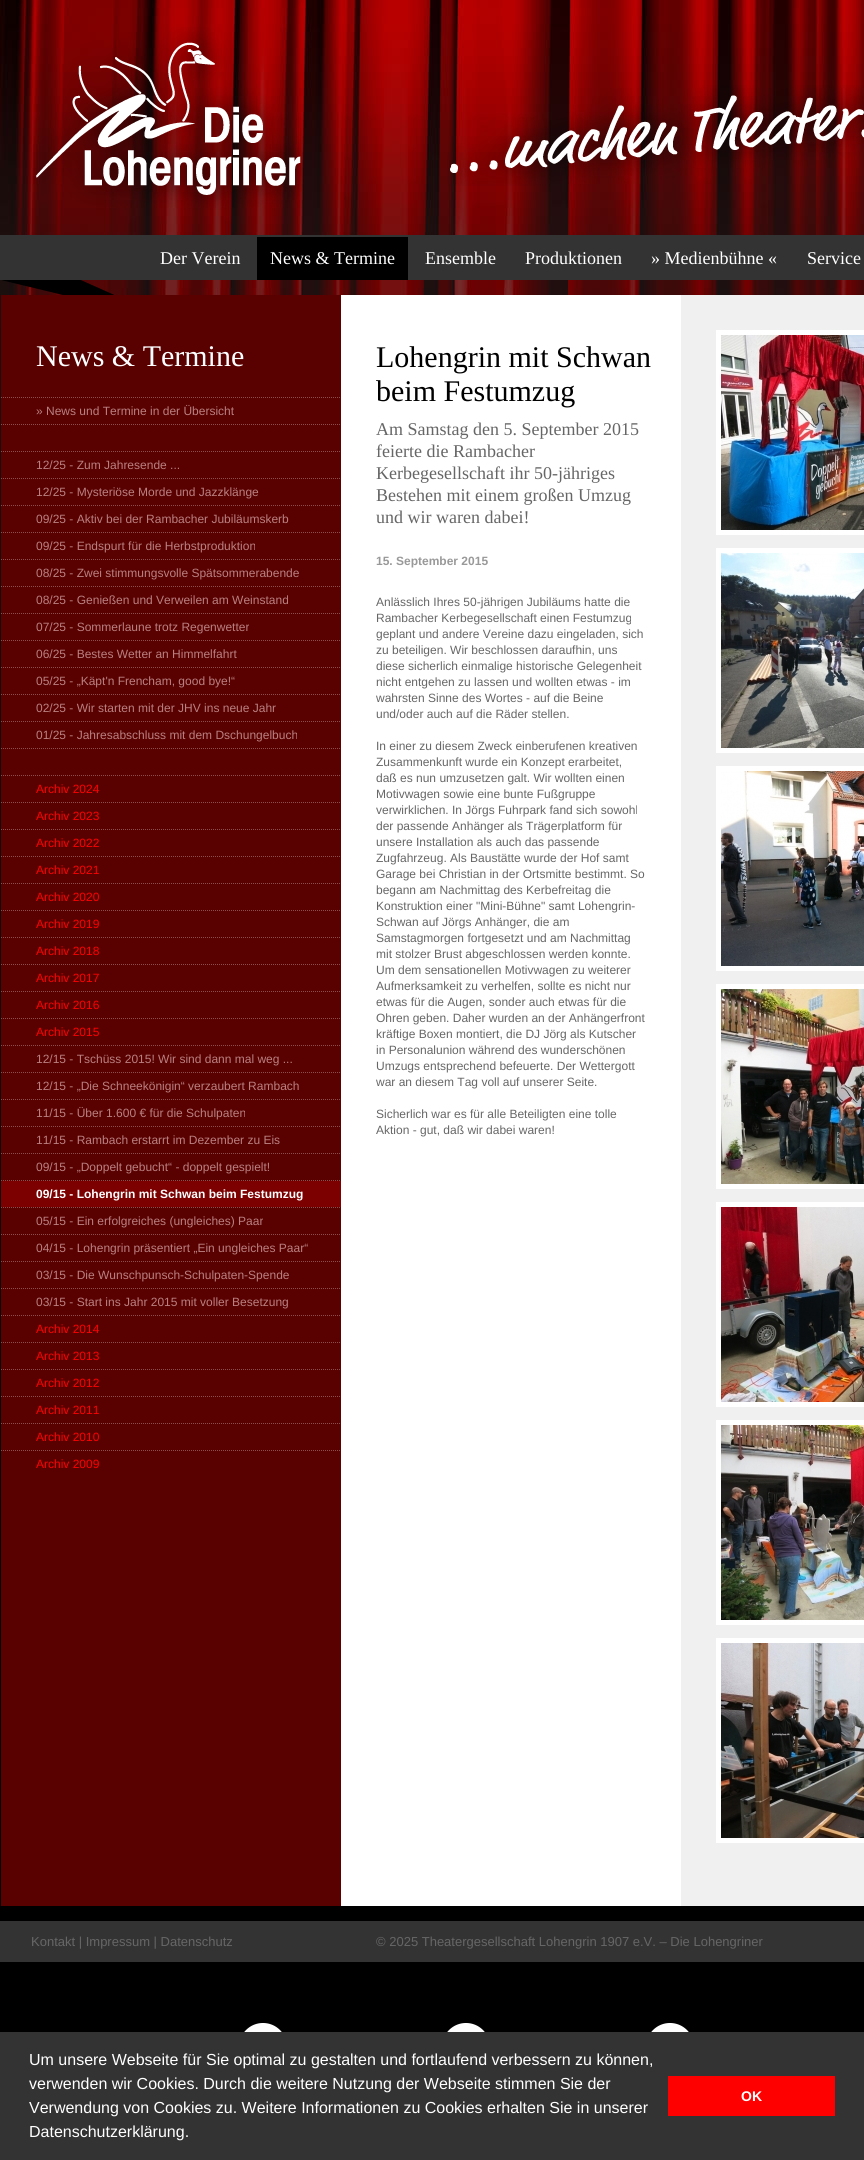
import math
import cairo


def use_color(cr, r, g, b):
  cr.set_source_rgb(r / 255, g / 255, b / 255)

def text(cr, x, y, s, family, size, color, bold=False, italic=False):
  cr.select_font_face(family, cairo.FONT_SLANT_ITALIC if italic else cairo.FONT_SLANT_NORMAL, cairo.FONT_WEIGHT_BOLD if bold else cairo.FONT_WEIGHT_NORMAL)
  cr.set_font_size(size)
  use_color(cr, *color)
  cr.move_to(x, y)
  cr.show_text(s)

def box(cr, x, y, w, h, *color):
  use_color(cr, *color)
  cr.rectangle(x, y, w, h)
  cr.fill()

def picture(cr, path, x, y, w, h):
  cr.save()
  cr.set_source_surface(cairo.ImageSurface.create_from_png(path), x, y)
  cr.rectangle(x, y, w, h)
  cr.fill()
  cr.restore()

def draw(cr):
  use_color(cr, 0, 0, 0)
  cr.paint()
  picture(cr, "img_01.png", 0, 0, 864, 1500)
  picture(cr, "img_02.png", 31, 27, 273, 183)
  picture(cr, "img_03.png", 447, 85, 417, 101)
  box(cr, 0, 235, 864, 45, 51, 51, 51)
  box(cr, 257, 237, 151, 43, 0, 0, 0)
  picture(cr, "img_04.png", 2, 280, 112, 15)
  box(cr, 1, 295, 340, 1611, 89, 0, 0)
  cr.new_path()
  cr.move_to(1, 397.5)
  cr.line_to(341, 397.5)
  use_color(cr, 144, 77, 77)
  cr.set_line_width(1)
  cr.set_dash([1, 1])
  cr.stroke()
  cr.new_path()
  cr.move_to(1, 424.5)
  cr.line_to(341, 424.5)
  cr.stroke()
  cr.new_path()
  cr.move_to(1, 451.5)
  cr.line_to(341, 451.5)
  cr.stroke()
  cr.new_path()
  cr.move_to(1, 478.5)
  cr.line_to(341, 478.5)
  cr.stroke()
  cr.new_path()
  cr.move_to(1, 505.5)
  cr.line_to(341, 505.5)
  cr.stroke()
  cr.new_path()
  cr.move_to(1, 532.5)
  cr.line_to(341, 532.5)
  cr.stroke()
  cr.new_path()
  cr.move_to(1, 559.5)
  cr.line_to(341, 559.5)
  cr.stroke()
  cr.new_path()
  cr.move_to(1, 586.5)
  cr.line_to(341, 586.5)
  cr.stroke()
  cr.new_path()
  cr.move_to(1, 613.5)
  cr.line_to(341, 613.5)
  cr.stroke()
  cr.new_path()
  cr.move_to(1, 640.5)
  cr.line_to(341, 640.5)
  cr.stroke()
  cr.new_path()
  cr.move_to(1, 667.5)
  cr.line_to(341, 667.5)
  cr.stroke()
  cr.new_path()
  cr.move_to(1, 694.5)
  cr.line_to(341, 694.5)
  cr.stroke()
  cr.new_path()
  cr.move_to(1, 721.5)
  cr.line_to(341, 721.5)
  cr.stroke()
  cr.new_path()
  cr.move_to(1, 748.5)
  cr.line_to(341, 748.5)
  cr.stroke()
  cr.new_path()
  cr.move_to(1, 775.5)
  cr.line_to(341, 775.5)
  cr.stroke()
  cr.new_path()
  cr.move_to(1, 802.5)
  cr.line_to(341, 802.5)
  cr.stroke()
  cr.new_path()
  cr.move_to(1, 829.5)
  cr.line_to(341, 829.5)
  cr.stroke()
  cr.new_path()
  cr.move_to(1, 856.5)
  cr.line_to(341, 856.5)
  cr.stroke()
  cr.new_path()
  cr.move_to(1, 883.5)
  cr.line_to(341, 883.5)
  cr.stroke()
  cr.new_path()
  cr.move_to(1, 910.5)
  cr.line_to(341, 910.5)
  cr.stroke()
  cr.new_path()
  cr.move_to(1, 937.5)
  cr.line_to(341, 937.5)
  cr.stroke()
  cr.new_path()
  cr.move_to(1, 964.5)
  cr.line_to(341, 964.5)
  cr.stroke()
  cr.new_path()
  cr.move_to(1, 991.5)
  cr.line_to(341, 991.5)
  cr.stroke()
  cr.new_path()
  cr.move_to(1, 1018.5)
  cr.line_to(341, 1018.5)
  cr.stroke()
  cr.new_path()
  cr.move_to(1, 1045.5)
  cr.line_to(341, 1045.5)
  cr.stroke()
  cr.new_path()
  cr.move_to(1, 1072.5)
  cr.line_to(341, 1072.5)
  cr.stroke()
  cr.new_path()
  cr.move_to(1, 1099.5)
  cr.line_to(341, 1099.5)
  cr.stroke()
  cr.new_path()
  cr.move_to(1, 1126.5)
  cr.line_to(341, 1126.5)
  cr.stroke()
  cr.new_path()
  cr.move_to(1, 1153.5)
  cr.line_to(341, 1153.5)
  cr.stroke()
  cr.new_path()
  cr.move_to(1, 1180.5)
  cr.line_to(341, 1180.5)
  cr.stroke()
  box(cr, 1, 1181, 340, 26, 124, 0, 0)
  cr.new_path()
  cr.move_to(1, 1207.5)
  cr.line_to(341, 1207.5)
  use_color(cr, 144, 77, 77)
  cr.stroke()
  cr.new_path()
  cr.move_to(1, 1234.5)
  cr.line_to(341, 1234.5)
  cr.stroke()
  cr.new_path()
  cr.move_to(1, 1261.5)
  cr.line_to(341, 1261.5)
  cr.stroke()
  cr.new_path()
  cr.move_to(1, 1288.5)
  cr.line_to(341, 1288.5)
  cr.stroke()
  cr.new_path()
  cr.move_to(1, 1315.5)
  cr.line_to(341, 1315.5)
  cr.stroke()
  cr.new_path()
  cr.move_to(1, 1342.5)
  cr.line_to(341, 1342.5)
  cr.stroke()
  cr.new_path()
  cr.move_to(1, 1369.5)
  cr.line_to(341, 1369.5)
  cr.stroke()
  cr.new_path()
  cr.move_to(1, 1396.5)
  cr.line_to(341, 1396.5)
  cr.stroke()
  cr.new_path()
  cr.move_to(1, 1423.5)
  cr.line_to(341, 1423.5)
  cr.stroke()
  cr.new_path()
  cr.move_to(1, 1450.5)
  cr.line_to(341, 1450.5)
  cr.stroke()
  box(cr, 341, 295, 340, 1611, 255, 255, 255)
  box(cr, 681, 295, 183, 1611, 240, 240, 240)
  picture(cr, "img_05.png", 716, 330, 148, 205)
  picture(cr, "img_06.png", 716, 548, 148, 205)
  picture(cr, "img_07.png", 716, 766, 148, 205)
  picture(cr, "img_08.png", 716, 984, 148, 205)
  picture(cr, "img_09.png", 716, 1202, 148, 205)
  picture(cr, "img_10.png", 716, 1420, 148, 205)
  picture(cr, "img_11.png", 716, 1638, 148, 205)
  box(cr, 0, 1921, 864, 41, 51, 51, 51)
  picture(cr, "img_12.png", 244, 2023, 38, 9)
  picture(cr, "img_13.png", 447, 2023, 38, 9)
  picture(cr, "img_12.png", 651, 2023, 38, 9)
  box(cr, 0, 2032, 864, 128, 51, 51, 51)
  box(cr, 668, 2076, 167, 40, 255, 0, 0)
  text(cr, 160, 264, "Der Verein", "Liberation Serif", 18, (255, 255, 255))
  text(cr, 270, 264, "News & Termine", "Liberation Serif", 18, (255, 255, 255))
  text(cr, 425, 264, "Ensemble", "Liberation Serif", 18, (255, 255, 255))
  text(cr, 525, 264, "Produktionen", "Liberation Serif", 18, (255, 255, 255))
  text(cr, 651, 264, "» Medienbühne «", "Liberation Serif", 18, (255, 255, 255))
  text(cr, 807, 264, "Service", "Liberation Serif", 18, (255, 255, 255))
  text(cr, 36, 366, "News & Termine", "Liberation Serif", 30, (255, 255, 255))
  text(cr, 36, 415, "» News und Termine in der Übersicht", "Liberation Sans", 12, (186, 128, 128))
  text(cr, 36, 469, "12/25 - Zum Jahresende ...", "Liberation Sans", 12, (186, 128, 128))
  text(cr, 36, 496, "12/25 - Mysteriöse Morde und Jazzklänge", "Liberation Sans", 12, (186, 128, 128))
  text(cr, 36, 523, "09/25 - Aktiv bei der Rambacher Jubiläumskerb", "Liberation Sans", 12, (186, 128, 128))
  text(cr, 36, 550, "09/25 - Endspurt für die Herbstproduktion", "Liberation Sans", 12, (186, 128, 128))
  text(cr, 36, 577, "08/25 - Zwei stimmungsvolle Spätsommerabende", "Liberation Sans", 12, (186, 128, 128))
  text(cr, 36, 604, "08/25 - Genießen und Verweilen am Weinstand", "Liberation Sans", 12, (186, 128, 128))
  text(cr, 36, 631, "07/25 - Sommerlaune trotz Regenwetter", "Liberation Sans", 12, (186, 128, 128))
  text(cr, 36, 658, "06/25 - Bestes Wetter an Himmelfahrt", "Liberation Sans", 12, (186, 128, 128))
  text(cr, 36, 685, "05/25 - „Käpt'n Frencham, good bye!“", "Liberation Sans", 12, (186, 128, 128))
  text(cr, 36, 712, "02/25 - Wir starten mit der JHV ins neue Jahr", "Liberation Sans", 12, (186, 128, 128))
  text(cr, 36, 739, "01/25 - Jahresabschluss mit dem Dschungelbuch", "Liberation Sans", 12, (186, 128, 128))
  text(cr, 36, 793, "Archiv 2024", "Liberation Sans", 12, (255, 0, 0))
  text(cr, 36, 820, "Archiv 2023", "Liberation Sans", 12, (255, 0, 0))
  text(cr, 36, 847, "Archiv 2022", "Liberation Sans", 12, (255, 0, 0))
  text(cr, 36, 874, "Archiv 2021", "Liberation Sans", 12, (255, 0, 0))
  text(cr, 36, 901, "Archiv 2020", "Liberation Sans", 12, (255, 0, 0))
  text(cr, 36, 928, "Archiv 2019", "Liberation Sans", 12, (255, 0, 0))
  text(cr, 36, 955, "Archiv 2018", "Liberation Sans", 12, (255, 0, 0))
  text(cr, 36, 982, "Archiv 2017", "Liberation Sans", 12, (255, 0, 0))
  text(cr, 36, 1009, "Archiv 2016", "Liberation Sans", 12, (255, 0, 0))
  text(cr, 36, 1036, "Archiv 2015", "Liberation Sans", 12, (255, 0, 0))
  text(cr, 36, 1063, "12/15 - Tschüss 2015! Wir sind dann mal weg ...", "Liberation Sans", 12, (186, 128, 128))
  text(cr, 36, 1090, "12/15 - „Die Schneekönigin“ verzaubert Rambach", "Liberation Sans", 12, (186, 128, 128))
  text(cr, 36, 1117, "11/15 - Über 1.600 € für die Schulpaten", "Liberation Sans", 12, (186, 128, 128))
  text(cr, 36, 1144, "11/15 - Rambach erstarrt im Dezember zu Eis", "Liberation Sans", 12, (186, 128, 128))
  text(cr, 36, 1171, "09/15 - „Doppelt gebucht“ - doppelt gespielt!", "Liberation Sans", 12, (186, 128, 128))
  text(cr, 36, 1198, "09/15 - Lohengrin mit Schwan beim Festumzug", "Liberation Sans", 12, (255, 255, 255), bold=True)
  text(cr, 36, 1225, "05/15 - Ein erfolgreiches (ungleiches) Paar", "Liberation Sans", 12, (186, 128, 128))
  text(cr, 36, 1252, "04/15 - Lohengrin präsentiert „Ein ungleiches Paar“", "Liberation Sans", 12, (186, 128, 128))
  text(cr, 36, 1279, "03/15 - Die Wunschpunsch-Schulpaten-Spende", "Liberation Sans", 12, (186, 128, 128))
  text(cr, 36, 1306, "03/15 - Start ins Jahr 2015 mit voller Besetzung", "Liberation Sans", 12, (186, 128, 128))
  text(cr, 36, 1333, "Archiv 2014", "Liberation Sans", 12, (255, 0, 0))
  text(cr, 36, 1360, "Archiv 2013", "Liberation Sans", 12, (255, 0, 0))
  text(cr, 36, 1387, "Archiv 2012", "Liberation Sans", 12, (255, 0, 0))
  text(cr, 36, 1414, "Archiv 2011", "Liberation Sans", 12, (255, 0, 0))
  text(cr, 36, 1441, "Archiv 2010", "Liberation Sans", 12, (255, 0, 0))
  text(cr, 36, 1468, "Archiv 2009", "Liberation Sans", 12, (255, 0, 0))
  text(cr, 376, 367, "Lohengrin mit Schwan", "Liberation Serif", 30, (0, 0, 0))
  text(cr, 376, 401, "beim Festumzug", "Liberation Serif", 30, (0, 0, 0))
  text(cr, 376, 435, "Am Samstag den 5. September 2015", "Liberation Serif", 18, (102, 102, 102))
  text(cr, 376, 457, "feierte die Rambacher", "Liberation Serif", 18, (102, 102, 102))
  text(cr, 376, 479, "Kerbegesellschaft ihr 50-jähriges", "Liberation Serif", 18, (102, 102, 102))
  text(cr, 376, 501, "Bestehen mit einem großen Umzug", "Liberation Serif", 18, (102, 102, 102))
  text(cr, 376, 523, "und wir waren dabei!", "Liberation Serif", 18, (102, 102, 102))
  text(cr, 376, 565, "15. September 2015", "Liberation Sans", 12, (153, 153, 153), bold=True)
  text(cr, 376, 606, "Anlässlich Ihres 50-jährigen Jubiläums hatte die", "Liberation Sans", 12, (102, 102, 102))
  text(cr, 376, 622, "Rambacher Kerbegesellschaft einen Festumzug", "Liberation Sans", 12, (102, 102, 102))
  text(cr, 376, 638, "geplant und andere Vereine dazu eingeladen, sich", "Liberation Sans", 12, (102, 102, 102))
  text(cr, 376, 654, "zu beteiligen. Wir beschlossen daraufhin, uns", "Liberation Sans", 12, (102, 102, 102))
  text(cr, 376, 670, "diese sicherlich einmalige historische Gelegenheit", "Liberation Sans", 12, (102, 102, 102))
  text(cr, 376, 686, "nicht entgehen zu lassen und wollten etwas - im", "Liberation Sans", 12, (102, 102, 102))
  text(cr, 376, 702, "wahrsten Sinne des Wortes - auf die Beine", "Liberation Sans", 12, (102, 102, 102))
  text(cr, 376, 718, "und/oder auch auf die Räder stellen.", "Liberation Sans", 12, (102, 102, 102))
  text(cr, 376, 750, "In einer zu diesem Zweck einberufenen kreativen", "Liberation Sans", 12, (102, 102, 102))
  text(cr, 376, 766, "Zusammenkunft wurde ein Konzept erarbeitet,", "Liberation Sans", 12, (102, 102, 102))
  text(cr, 376, 782, "daß es nun umzusetzen galt. Wir wollten einen", "Liberation Sans", 12, (102, 102, 102))
  text(cr, 376, 798, "Motivwagen sowie eine bunte Fußgruppe", "Liberation Sans", 12, (102, 102, 102))
  text(cr, 376, 814, "verwirklichen. In Jörgs Fuhrpark fand sich sowohl", "Liberation Sans", 12, (102, 102, 102))
  text(cr, 376, 830, "der passende Anhänger als Trägerplatform für", "Liberation Sans", 12, (102, 102, 102))
  text(cr, 376, 846, "unsere Installation als auch das passende", "Liberation Sans", 12, (102, 102, 102))
  text(cr, 376, 862, "Zugfahrzeug. Als Baustätte wurde der Hof samt", "Liberation Sans", 12, (102, 102, 102))
  text(cr, 376, 878, "Garage bei Christian in der Ortsmitte bestimmt. So", "Liberation Sans", 12, (102, 102, 102))
  text(cr, 376, 894, "begann am Nachmittag des Kerbefreitag die", "Liberation Sans", 12, (102, 102, 102))
  text(cr, 376, 910, "Konstruktion einer \"Mini-Bühne\" samt Lohengrin-", "Liberation Sans", 12, (102, 102, 102))
  text(cr, 376, 926, "Schwan auf Jörgs Anhänger, die am", "Liberation Sans", 12, (102, 102, 102))
  text(cr, 376, 942, "Samstagmorgen fortgesetzt und am Nachmittag", "Liberation Sans", 12, (102, 102, 102))
  text(cr, 376, 958, "mit stolzer Brust abgeschlossen werden konnte.", "Liberation Sans", 12, (102, 102, 102))
  text(cr, 376, 974, "Um dem sensationellen Motivwagen zu weiterer", "Liberation Sans", 12, (102, 102, 102))
  text(cr, 376, 990, "Aufmerksamkeit zu verhelfen, sollte es nicht nur", "Liberation Sans", 12, (102, 102, 102))
  text(cr, 376, 1006, "etwas für die Augen, sonder auch etwas für die", "Liberation Sans", 12, (102, 102, 102))
  text(cr, 376, 1022, "Ohren geben. Daher wurden an der Anhängerfront", "Liberation Sans", 12, (102, 102, 102))
  text(cr, 376, 1038, "kräftige Boxen montiert, die DJ Jörg als Kutscher", "Liberation Sans", 12, (102, 102, 102))
  text(cr, 376, 1054, "in Personalunion während des wunderschönen", "Liberation Sans", 12, (102, 102, 102))
  text(cr, 376, 1070, "Umzugs entsprechend befeuerte. Der Wettergott", "Liberation Sans", 12, (102, 102, 102))
  text(cr, 376, 1086, "war an diesem Tag voll auf unserer Seite.", "Liberation Sans", 12, (102, 102, 102))
  text(cr, 376, 1118, "Sicherlich war es für alle Beteiligten eine tolle", "Liberation Sans", 12, (102, 102, 102))
  text(cr, 376, 1134, "Aktion - gut, daß wir dabei waren!", "Liberation Sans", 12, (102, 102, 102))
  text(cr, 31, 1946, "Kontakt | Impressum | Datenschutz", "Liberation Sans", 13, (102, 102, 102))
  text(cr, 376, 1946, "© 2025 Theatergesellschaft Lohengrin 1907 e.V. – Die Lohengriner", "Liberation Sans", 13, (102, 102, 102))
  text(cr, 29, 2065, "Um unsere Webseite für Sie optimal zu gestalten und fortlaufend verbessern zu können,", "Liberation Sans", 16, (255, 255, 255))
  text(cr, 29, 2089, "verwenden wir Cookies. Durch die weitere Nutzung der Webseite stimmen Sie der", "Liberation Sans", 16, (255, 255, 255))
  text(cr, 29, 2113, "Verwendung von Cookies zu. Weitere Informationen zu Cookies erhalten Sie in unserer", "Liberation Sans", 16, (255, 255, 255))
  text(cr, 29, 2137, "Datenschutzerklärung.", "Liberation Sans", 16, (255, 255, 255))
  text(cr, 741, 2101, "OK", "Liberation Sans", 14, (255, 255, 255), bold=True)


surface = cairo.ImageSurface(cairo.FORMAT_RGB24, 864, 2160)
cr = cairo.Context(surface)
options = cairo.FontOptions()
options.set_hint_metrics(cairo.HINT_METRICS_OFF)
options.set_hint_style(cairo.HINT_STYLE_NONE)
cr.set_font_options(options)
cr.set_miter_limit(4)
draw(cr)
surface.write_to_png("out.png")
